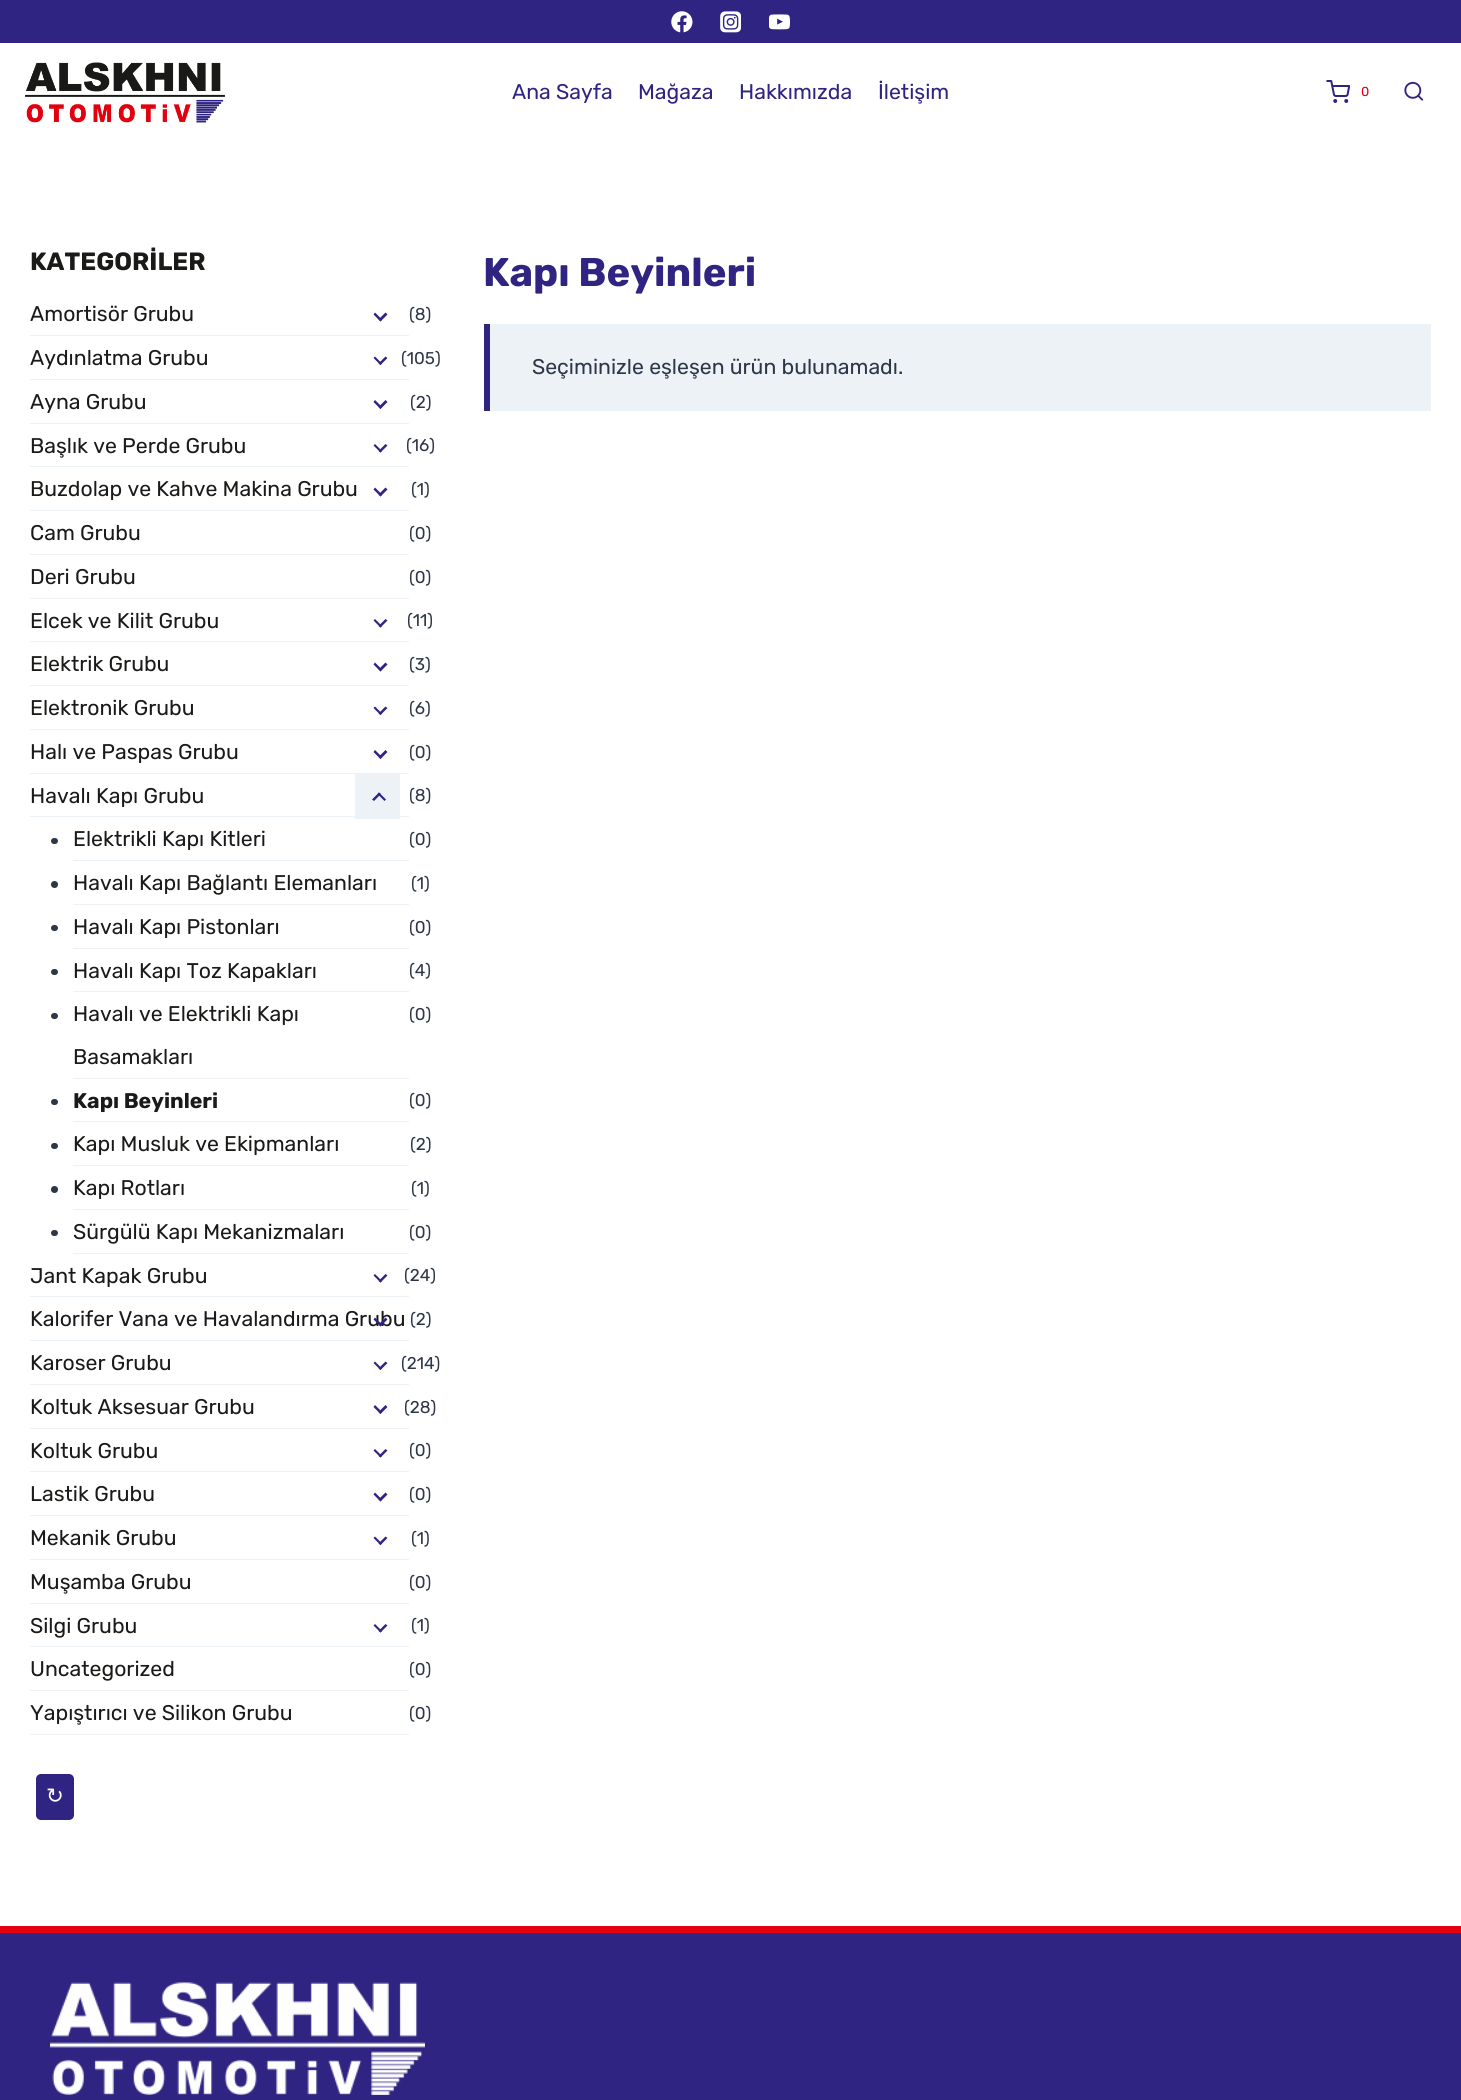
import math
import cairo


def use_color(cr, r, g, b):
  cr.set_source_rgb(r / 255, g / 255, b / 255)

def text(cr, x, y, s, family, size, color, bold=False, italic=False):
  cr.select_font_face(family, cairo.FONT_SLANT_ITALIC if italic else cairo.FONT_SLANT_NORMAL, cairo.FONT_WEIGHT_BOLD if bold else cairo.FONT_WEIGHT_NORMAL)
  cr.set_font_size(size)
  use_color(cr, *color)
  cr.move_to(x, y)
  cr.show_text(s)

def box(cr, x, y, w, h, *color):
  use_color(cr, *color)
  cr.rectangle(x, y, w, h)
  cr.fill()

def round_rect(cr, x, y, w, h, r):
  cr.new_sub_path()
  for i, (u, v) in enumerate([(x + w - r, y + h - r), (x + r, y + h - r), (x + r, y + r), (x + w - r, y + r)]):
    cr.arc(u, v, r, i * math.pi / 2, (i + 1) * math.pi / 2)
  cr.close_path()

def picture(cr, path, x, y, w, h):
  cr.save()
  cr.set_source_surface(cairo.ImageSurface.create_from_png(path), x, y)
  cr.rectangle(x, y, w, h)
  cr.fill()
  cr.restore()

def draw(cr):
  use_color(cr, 255, 255, 255)
  cr.paint()
  box(cr, 0, 0, 1461, 43, 47, 36, 130)
  picture(cr, "img_01.png", 671, 11, 22, 22)
  picture(cr, "img_02.png", 720, 11, 21, 22)
  picture(cr, "img_03.png", 769, 14, 21, 16)
  picture(cr, "img_04.png", 25, 62, 200, 61)
  picture(cr, "img_05.png", 1326, 80, 24, 23)
  picture(cr, "img_06.png", 1404, 81, 20, 20)
  box(cr, 30, 335, 379, 1, 237, 242, 247)
  use_color(cr, 47, 36, 130)
  cr.new_path()
  cr.move_to(387.5, 314.5)
  cr.line_to(380.5, 321.5)
  cr.line_to(378.5, 319.5)
  cr.line_to(385.5, 312.5)
  cr.close_path()
  cr.fill()
  cr.new_path()
  cr.move_to(382, 319.5)
  cr.line_to(380.5, 321.5)
  cr.line_to(373.5, 314.5)
  cr.line_to(375, 312.5)
  cr.close_path()
  cr.fill()
  box(cr, 30, 379, 379, 1, 237, 242, 247)
  use_color(cr, 47, 36, 130)
  cr.new_path()
  cr.move_to(387.5, 358)
  cr.line_to(380.5, 365)
  cr.line_to(378.5, 363.5)
  cr.line_to(385.5, 356.5)
  cr.close_path()
  cr.fill()
  cr.new_path()
  cr.move_to(382, 363.5)
  cr.line_to(380.5, 365)
  cr.line_to(373.5, 358)
  cr.line_to(375, 356.5)
  cr.close_path()
  cr.fill()
  box(cr, 30, 423, 379, 1, 237, 242, 247)
  use_color(cr, 47, 36, 130)
  cr.new_path()
  cr.move_to(387.5, 402)
  cr.line_to(380.5, 409)
  cr.line_to(378.5, 407)
  cr.line_to(385.5, 400)
  cr.close_path()
  cr.fill()
  cr.new_path()
  cr.move_to(382, 407)
  cr.line_to(380.5, 409)
  cr.line_to(373.5, 402)
  cr.line_to(375, 400)
  cr.close_path()
  cr.fill()
  box(cr, 30, 466, 379, 1, 237, 242, 247)
  use_color(cr, 47, 36, 130)
  cr.new_path()
  cr.move_to(387.5, 445.5)
  cr.line_to(380.5, 452.5)
  cr.line_to(378.5, 451)
  cr.line_to(385.5, 444)
  cr.close_path()
  cr.fill()
  cr.new_path()
  cr.move_to(382, 451)
  cr.line_to(380.5, 452.5)
  cr.line_to(373.5, 445.5)
  cr.line_to(375, 444)
  cr.close_path()
  cr.fill()
  box(cr, 30, 510, 379, 1, 237, 242, 247)
  use_color(cr, 47, 36, 130)
  cr.new_path()
  cr.move_to(387.5, 489.5)
  cr.line_to(380.5, 496.5)
  cr.line_to(378.5, 494.5)
  cr.line_to(385.5, 487.5)
  cr.close_path()
  cr.fill()
  cr.new_path()
  cr.move_to(382, 494.5)
  cr.line_to(380.5, 496.5)
  cr.line_to(373.5, 489.5)
  cr.line_to(375, 487.5)
  cr.close_path()
  cr.fill()
  box(cr, 30, 554, 379, 1, 237, 242, 247)
  box(cr, 30, 598, 379, 1, 237, 242, 247)
  box(cr, 30, 641, 379, 1, 237, 242, 247)
  use_color(cr, 47, 36, 130)
  cr.new_path()
  cr.move_to(387.5, 620.5)
  cr.line_to(380.5, 627.5)
  cr.line_to(378.5, 626)
  cr.line_to(385.5, 619)
  cr.close_path()
  cr.fill()
  cr.new_path()
  cr.move_to(382, 626)
  cr.line_to(380.5, 627.5)
  cr.line_to(373.5, 620.5)
  cr.line_to(375, 619)
  cr.close_path()
  cr.fill()
  box(cr, 30, 685, 379, 1, 237, 242, 247)
  use_color(cr, 47, 36, 130)
  cr.new_path()
  cr.move_to(387.5, 664.5)
  cr.line_to(380.5, 671.5)
  cr.line_to(378.5, 669.5)
  cr.line_to(385.5, 662.5)
  cr.close_path()
  cr.fill()
  cr.new_path()
  cr.move_to(382, 669.5)
  cr.line_to(380.5, 671.5)
  cr.line_to(373.5, 664.5)
  cr.line_to(375, 662.5)
  cr.close_path()
  cr.fill()
  box(cr, 30, 729, 379, 1, 237, 242, 247)
  use_color(cr, 47, 36, 130)
  cr.new_path()
  cr.move_to(387.5, 708)
  cr.line_to(380.5, 715)
  cr.line_to(378.5, 713.5)
  cr.line_to(385.5, 706.5)
  cr.close_path()
  cr.fill()
  cr.new_path()
  cr.move_to(382, 713.5)
  cr.line_to(380.5, 715)
  cr.line_to(373.5, 708)
  cr.line_to(375, 706.5)
  cr.close_path()
  cr.fill()
  box(cr, 30, 773, 379, 1, 237, 242, 247)
  use_color(cr, 47, 36, 130)
  cr.new_path()
  cr.move_to(387.5, 752)
  cr.line_to(380.5, 759)
  cr.line_to(378.5, 757)
  cr.line_to(385.5, 750)
  cr.close_path()
  cr.fill()
  cr.new_path()
  cr.move_to(382, 757)
  cr.line_to(380.5, 759)
  cr.line_to(373.5, 752)
  cr.line_to(375, 750)
  cr.close_path()
  cr.fill()
  box(cr, 30, 816, 379, 1, 237, 242, 247)
  box(cr, 355, 774, 45, 45, 237, 242, 247)
  use_color(cr, 47, 36, 130)
  cr.new_path()
  cr.move_to(372, 799.5)
  cr.line_to(379, 792.5)
  cr.line_to(381, 794)
  cr.line_to(374, 801)
  cr.close_path()
  cr.fill()
  cr.new_path()
  cr.move_to(377.5, 794)
  cr.line_to(379, 792.5)
  cr.line_to(386, 799.5)
  cr.line_to(384.5, 801)
  cr.close_path()
  cr.fill()
  use_color(cr, 45, 55, 72)
  round_rect(cr, 51, 838, 7, 6, 3)
  cr.fill()
  box(cr, 73, 860, 336, 1, 237, 242, 247)
  use_color(cr, 45, 55, 72)
  cr.arc(54.5, 884.5, 3.5, 0, 2 * math.pi)
  cr.fill()
  box(cr, 73, 904, 336, 1, 237, 242, 247)
  use_color(cr, 45, 55, 72)
  round_rect(cr, 51, 925, 7, 6, 3)
  cr.fill()
  box(cr, 73, 948, 336, 1, 237, 242, 247)
  use_color(cr, 45, 55, 72)
  round_rect(cr, 51, 969, 7, 6, 3)
  cr.fill()
  box(cr, 73, 991, 336, 1, 237, 242, 247)
  use_color(cr, 45, 55, 72)
  round_rect(cr, 51, 1013, 7, 6, 3)
  cr.fill()
  box(cr, 73, 1078, 336, 1, 237, 242, 247)
  use_color(cr, 45, 55, 72)
  round_rect(cr, 51, 1099, 7, 6, 3)
  cr.fill()
  box(cr, 73, 1121, 336, 1, 237, 242, 247)
  use_color(cr, 45, 55, 72)
  round_rect(cr, 51, 1143, 7, 6, 3)
  cr.fill()
  box(cr, 73, 1165, 336, 1, 237, 242, 247)
  use_color(cr, 45, 55, 72)
  cr.arc(54.5, 1189.5, 3.5, 0, 2 * math.pi)
  cr.fill()
  box(cr, 73, 1209, 336, 1, 237, 242, 247)
  use_color(cr, 45, 55, 72)
  round_rect(cr, 51, 1230, 7, 6, 3)
  cr.fill()
  box(cr, 73, 1253, 336, 1, 237, 242, 247)
  box(cr, 30, 1296, 379, 1, 237, 242, 247)
  use_color(cr, 47, 36, 130)
  cr.new_path()
  cr.move_to(387.5, 1275.5)
  cr.line_to(380.5, 1282.5)
  cr.line_to(378.5, 1281)
  cr.line_to(385.5, 1274)
  cr.close_path()
  cr.fill()
  cr.new_path()
  cr.move_to(382, 1281)
  cr.line_to(380.5, 1282.5)
  cr.line_to(373.5, 1275.5)
  cr.line_to(375, 1274)
  cr.close_path()
  cr.fill()
  box(cr, 30, 1340, 379, 1, 237, 242, 247)
  box(cr, 30, 1384, 379, 1, 237, 242, 247)
  use_color(cr, 47, 36, 130)
  cr.new_path()
  cr.move_to(387.5, 1363)
  cr.line_to(380.5, 1370)
  cr.line_to(378.5, 1368.5)
  cr.line_to(385.5, 1361.5)
  cr.close_path()
  cr.fill()
  cr.new_path()
  cr.move_to(382, 1368.5)
  cr.line_to(380.5, 1370)
  cr.line_to(373.5, 1363)
  cr.line_to(375, 1361.5)
  cr.close_path()
  cr.fill()
  box(cr, 30, 1428, 379, 1, 237, 242, 247)
  use_color(cr, 47, 36, 130)
  cr.new_path()
  cr.move_to(387.5, 1407)
  cr.line_to(380.5, 1414)
  cr.line_to(378.5, 1412)
  cr.line_to(385.5, 1405)
  cr.close_path()
  cr.fill()
  cr.new_path()
  cr.move_to(382, 1412)
  cr.line_to(380.5, 1414)
  cr.line_to(373.5, 1407)
  cr.line_to(375, 1405)
  cr.close_path()
  cr.fill()
  box(cr, 30, 1471, 379, 1, 237, 242, 247)
  use_color(cr, 47, 36, 130)
  cr.new_path()
  cr.move_to(387.5, 1450.5)
  cr.line_to(380.5, 1457.5)
  cr.line_to(378.5, 1456)
  cr.line_to(385.5, 1449)
  cr.close_path()
  cr.fill()
  cr.new_path()
  cr.move_to(382, 1456)
  cr.line_to(380.5, 1457.5)
  cr.line_to(373.5, 1450.5)
  cr.line_to(375, 1449)
  cr.close_path()
  cr.fill()
  box(cr, 30, 1515, 379, 1, 237, 242, 247)
  use_color(cr, 47, 36, 130)
  cr.new_path()
  cr.move_to(387.5, 1494.5)
  cr.line_to(380.5, 1501.5)
  cr.line_to(378.5, 1499.5)
  cr.line_to(385.5, 1492.5)
  cr.close_path()
  cr.fill()
  cr.new_path()
  cr.move_to(382, 1499.5)
  cr.line_to(380.5, 1501.5)
  cr.line_to(373.5, 1494.5)
  cr.line_to(375, 1492.5)
  cr.close_path()
  cr.fill()
  box(cr, 30, 1559, 379, 1, 237, 242, 247)
  use_color(cr, 47, 36, 130)
  cr.new_path()
  cr.move_to(387.5, 1538)
  cr.line_to(380.5, 1545)
  cr.line_to(378.5, 1543.5)
  cr.line_to(385.5, 1536.5)
  cr.close_path()
  cr.fill()
  cr.new_path()
  cr.move_to(382, 1543.5)
  cr.line_to(380.5, 1545)
  cr.line_to(373.5, 1538)
  cr.line_to(375, 1536.5)
  cr.close_path()
  cr.fill()
  box(cr, 30, 1603, 379, 1, 237, 242, 247)
  box(cr, 30, 1646, 379, 1, 237, 242, 247)
  use_color(cr, 47, 36, 130)
  cr.new_path()
  cr.move_to(387.5, 1625.5)
  cr.line_to(380.5, 1632.5)
  cr.line_to(378.5, 1631)
  cr.line_to(385.5, 1624)
  cr.close_path()
  cr.fill()
  cr.new_path()
  cr.move_to(382, 1631)
  cr.line_to(380.5, 1632.5)
  cr.line_to(373.5, 1625.5)
  cr.line_to(375, 1624)
  cr.close_path()
  cr.fill()
  box(cr, 30, 1690, 379, 1, 237, 242, 247)
  box(cr, 30, 1734, 379, 1, 237, 242, 247)
  use_color(cr, 47, 36, 130)
  round_rect(cr, 36, 1774, 38, 46, 5)
  cr.fill()
  box(cr, 490, 324, 941, 87, 237, 242, 247)
  box(cr, 484, 324, 6, 87, 47, 36, 130)
  box(cr, 0, 1933, 1461, 167, 47, 36, 130)
  box(cr, 0, 1926, 1461, 7, 227, 0, 15)
  picture(cr, "img_07.png", 50, 1982, 375, 113)
  text(cr, 512, 99, "Ana Sayfa", "Rubik", 21.25, (47, 36, 130))
  text(cr, 638, 99, "Mağaza", "Rubik", 21.25, (47, 36, 130))
  text(cr, 739, 99, "Hakkımızda", "Rubik", 21.25, (47, 36, 130))
  text(cr, 878, 99, "İletişim", "Rubik", 21.25, (47, 36, 130))
  text(cr, 1361, 96, "0", "Rubik", 13, (227, 0, 15))
  text(cr, 30, 270, "KATEGORİLER", "Rubik", 25, (26, 26, 24), bold=True)
  text(cr, 30, 321, "Amortisör Grubu", "Rubik", 21.25, (26, 26, 24))
  text(cr, 409, 320, "(8)", "Rubik", 17, (45, 55, 72))
  text(cr, 30, 365, "Aydınlatma Grubu", "Rubik", 21.25, (26, 26, 24))
  text(cr, 401, 364, "(105)", "Rubik", 17, (45, 55, 72))
  text(cr, 30, 409, "Ayna Grubu", "Rubik", 21.25, (26, 26, 24))
  text(cr, 410, 408, "(2)", "Rubik", 17, (45, 55, 72))
  text(cr, 30, 453, "Başlık ve Perde Grubu", "Rubik", 21.25, (26, 26, 24))
  text(cr, 406, 451, "(16)", "Rubik", 17, (45, 55, 72))
  text(cr, 30, 496, "Buzdolap ve Kahve Makina Grubu", "Rubik", 21.25, (26, 26, 24))
  text(cr, 411, 495, "(1)", "Rubik", 17, (45, 55, 72))
  text(cr, 30, 540, "Cam Grubu", "Rubik", 21.25, (26, 26, 24))
  text(cr, 409, 539, "(0)", "Rubik", 17, (45, 55, 72))
  text(cr, 30, 584, "Deri Grubu", "Rubik", 21.25, (26, 26, 24))
  text(cr, 409, 583, "(0)", "Rubik", 17, (45, 55, 72))
  text(cr, 30, 628, "Elcek ve Kilit Grubu", "Rubik", 21.25, (26, 26, 24))
  text(cr, 407, 626, "(11)", "Rubik", 17, (45, 55, 72))
  text(cr, 30, 671, "Elektrik Grubu", "Rubik", 21.25, (26, 26, 24))
  text(cr, 409, 670, "(3)", "Rubik", 17, (45, 55, 72))
  text(cr, 30, 715, "Elektronik Grubu", "Rubik", 21.25, (26, 26, 24))
  text(cr, 409, 714, "(6)", "Rubik", 17, (45, 55, 72))
  text(cr, 30, 759, "Halı ve Paspas Grubu", "Rubik", 21.25, (26, 26, 24))
  text(cr, 409, 758, "(0)", "Rubik", 17, (45, 55, 72))
  text(cr, 30, 803, "Havalı Kapı Grubu", "Rubik", 21.25, (26, 26, 24))
  text(cr, 409, 801, "(8)", "Rubik", 17, (45, 55, 72))
  text(cr, 73, 846, "Elektrikli Kapı Kitleri", "Rubik", 21.25, (26, 26, 24))
  text(cr, 409, 845, "(0)", "Rubik", 17, (45, 55, 72))
  text(cr, 73, 890, "Havalı Kapı Bağlantı Elemanları", "Rubik", 21.25, (26, 26, 24))
  text(cr, 411, 889, "(1)", "Rubik", 17, (45, 55, 72))
  text(cr, 73, 934, "Havalı Kapı Pistonları", "Rubik", 21.25, (26, 26, 24))
  text(cr, 409, 933, "(0)", "Rubik", 17, (45, 55, 72))
  text(cr, 73, 978, "Havalı Kapı Toz Kapakları", "Rubik", 21.25, (26, 26, 24))
  text(cr, 409, 976, "(4)", "Rubik", 17, (45, 55, 72))
  text(cr, 73, 1021, "Havalı ve Elektrikli Kapı", "Rubik", 21.25, (26, 26, 24))
  text(cr, 73, 1064, "Basamakları", "Rubik", 21.25, (26, 26, 24))
  text(cr, 409, 1020, "(0)", "Rubik", 17, (45, 55, 72))
  text(cr, 73, 1108, "Kapı Beyinleri", "Rubik", 21.25, (26, 26, 24), bold=True)
  text(cr, 409, 1106, "(0)", "Rubik", 17, (45, 55, 72))
  text(cr, 73, 1151, "Kapı Musluk ve Ekipmanları", "Rubik", 21.25, (26, 26, 24))
  text(cr, 410, 1150, "(2)", "Rubik", 17, (45, 55, 72))
  text(cr, 73, 1195, "Kapı Rotları", "Rubik", 21.25, (26, 26, 24))
  text(cr, 411, 1194, "(1)", "Rubik", 17, (45, 55, 72))
  text(cr, 73, 1239, "Sürgülü Kapı Mekanizmaları", "Rubik", 21.25, (26, 26, 24))
  text(cr, 409, 1238, "(0)", "Rubik", 17, (45, 55, 72))
  text(cr, 30, 1283, "Jant Kapak Grubu", "Rubik", 21.25, (26, 26, 24))
  text(cr, 404, 1281, "(24)", "Rubik", 17, (45, 55, 72))
  text(cr, 30, 1326, "Kalorifer Vana ve Havalandırma Grubu", "Rubik", 21.25, (26, 26, 24))
  text(cr, 410, 1325, "(2)", "Rubik", 17, (45, 55, 72))
  use_color(cr, 47, 36, 130)
  cr.new_path()
  cr.move_to(387.5, 1319.5)
  cr.line_to(380.5, 1326.5)
  cr.line_to(378.5, 1324.5)
  cr.line_to(385.5, 1317.5)
  cr.close_path()
  cr.fill()
  cr.new_path()
  cr.move_to(382, 1324.5)
  cr.line_to(380.5, 1326.5)
  cr.line_to(373.5, 1319.5)
  cr.line_to(375, 1317.5)
  cr.close_path()
  cr.fill()
  text(cr, 30, 1370, "Karoser Grubu", "Rubik", 21.25, (26, 26, 24))
  text(cr, 401, 1369, "(214)", "Rubik", 17, (45, 55, 72))
  text(cr, 30, 1414, "Koltuk Aksesuar Grubu", "Rubik", 21.25, (26, 26, 24))
  text(cr, 404, 1413, "(28)", "Rubik", 17, (45, 55, 72))
  text(cr, 30, 1458, "Koltuk Grubu", "Rubik", 21.25, (26, 26, 24))
  text(cr, 409, 1456, "(0)", "Rubik", 17, (45, 55, 72))
  text(cr, 30, 1501, "Lastik Grubu", "Rubik", 21.25, (26, 26, 24))
  text(cr, 409, 1500, "(0)", "Rubik", 17, (45, 55, 72))
  text(cr, 30, 1545, "Mekanik Grubu", "Rubik", 21.25, (26, 26, 24))
  text(cr, 411, 1544, "(1)", "Rubik", 17, (45, 55, 72))
  text(cr, 30, 1589, "Muşamba Grubu", "Rubik", 21.25, (26, 26, 24))
  text(cr, 409, 1588, "(0)", "Rubik", 17, (45, 55, 72))
  text(cr, 30, 1633, "Silgi Grubu", "Rubik", 21.25, (26, 26, 24))
  text(cr, 411, 1631, "(1)", "Rubik", 17, (45, 55, 72))
  text(cr, 30, 1676, "Uncategorized", "Rubik", 21.25, (26, 26, 24))
  text(cr, 409, 1675, "(0)", "Rubik", 17, (45, 55, 72))
  text(cr, 30, 1720, "Yapıştırıcı ve Silikon Grubu", "Rubik", 21.25, (26, 26, 24))
  text(cr, 409, 1719, "(0)", "Rubik", 17, (45, 55, 72))
  text(cr, 46, 1803, "↻", "DejaVu Sans", 21.25, (255, 255, 255))
  text(cr, 483, 286, "Kapı Beyinleri", "Rubik", 40, (47, 36, 130), bold=True)
  text(cr, 532, 374, "Seçiminizle eşleşen ürün bulunamadı.", "Rubik", 21.25, (45, 55, 72))


surface = cairo.ImageSurface(cairo.FORMAT_RGB24, 1461, 2100)
cr = cairo.Context(surface)
options = cairo.FontOptions()
options.set_hint_metrics(cairo.HINT_METRICS_OFF)
options.set_hint_style(cairo.HINT_STYLE_NONE)
cr.set_font_options(options)
cr.set_miter_limit(4)
draw(cr)
surface.write_to_png("out.png")
